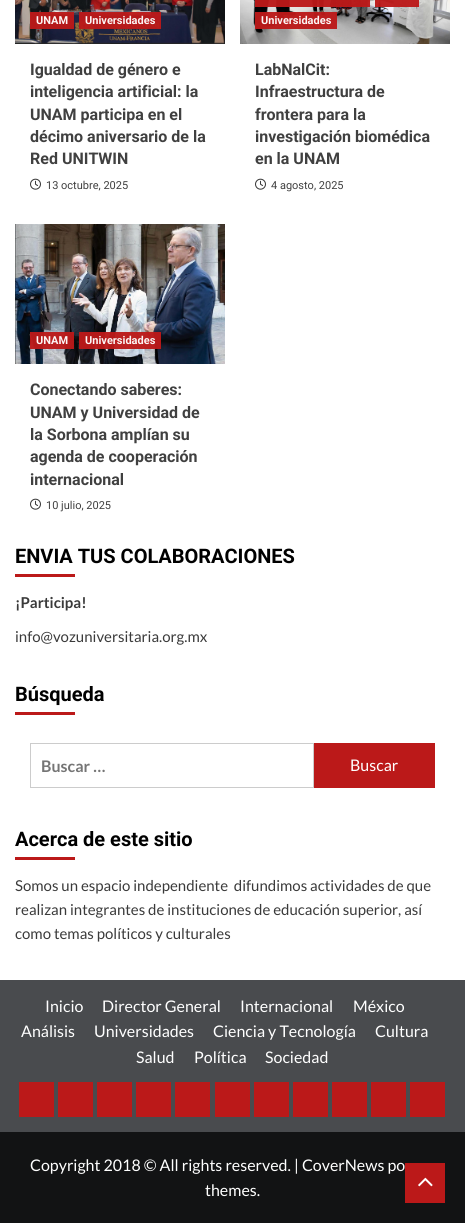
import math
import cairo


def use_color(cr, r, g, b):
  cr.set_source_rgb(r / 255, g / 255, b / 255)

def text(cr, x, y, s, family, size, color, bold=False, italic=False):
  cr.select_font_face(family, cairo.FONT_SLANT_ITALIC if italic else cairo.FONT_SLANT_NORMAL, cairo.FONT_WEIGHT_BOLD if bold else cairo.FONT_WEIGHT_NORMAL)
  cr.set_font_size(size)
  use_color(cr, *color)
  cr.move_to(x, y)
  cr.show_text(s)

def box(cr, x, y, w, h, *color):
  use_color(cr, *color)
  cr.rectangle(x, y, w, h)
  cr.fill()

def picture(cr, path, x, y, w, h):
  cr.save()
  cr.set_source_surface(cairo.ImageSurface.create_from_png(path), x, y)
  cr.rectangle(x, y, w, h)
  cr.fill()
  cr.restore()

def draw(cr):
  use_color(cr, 255, 255, 255)
  cr.paint()
  picture(cr, "img_01.png", 15, 0, 210, 44)
  cr.set_source_rgba(0.733, 0.098, 0.098, 0.96)
  cr.rectangle(30, 12, 44, 17)
  cr.fill()
  cr.rectangle(79, 12, 82, 17)
  cr.fill()
  picture(cr, "img_02.png", 30, 178, 11, 12)
  picture(cr, "img_03.png", 240, 0, 210, 44)
  cr.rectangle(255, 0, 115, 7)
  cr.fill()
  cr.rectangle(375, 0, 44, 7)
  cr.fill()
  cr.rectangle(255, 12, 82, 17)
  cr.fill()
  picture(cr, "img_02.png", 255, 178, 11, 12)
  picture(cr, "img_04.png", 15, 224, 210, 140)
  cr.rectangle(30, 332, 44, 17)
  cr.fill()
  cr.rectangle(79, 332, 82, 17)
  cr.fill()
  picture(cr, "img_02.png", 30, 498, 11, 12)
  box(cr, 15, 574, 60, 3, 187, 25, 25)
  box(cr, 15, 712, 60, 3, 187, 25, 25)
  cr.rectangle(30.5, 743.5, 283, 44)
  use_color(cr, 204, 204, 204)
  cr.set_line_width(1)
  cr.stroke()
  box(cr, 314, 743, 121, 45, 187, 25, 25)
  box(cr, 15, 857, 60, 3, 187, 25, 25)
  box(cr, 0, 980, 465, 152, 73, 75, 78)
  box(cr, 19, 1082, 35, 35, 187, 25, 25)
  box(cr, 58, 1082, 35, 35, 187, 25, 25)
  box(cr, 97, 1082, 35, 35, 187, 25, 25)
  box(cr, 136, 1082, 35, 35, 187, 25, 25)
  box(cr, 175, 1082, 35, 35, 187, 25, 25)
  box(cr, 215, 1082, 35, 35, 187, 25, 25)
  box(cr, 254, 1082, 35, 35, 187, 25, 25)
  box(cr, 293, 1082, 35, 35, 187, 25, 25)
  box(cr, 332, 1082, 35, 35, 187, 25, 25)
  box(cr, 371, 1082, 35, 35, 187, 25, 25)
  box(cr, 410, 1082, 35, 35, 187, 25, 25)
  box(cr, 0, 1132, 465, 91, 18, 19, 20)
  box(cr, 405, 1163, 40, 40, 187, 25, 25)
  picture(cr, "img_05.png", 418, 1177, 15, 10)
  text(cr, 36, 24, "UNAM", "Roboto", 11, (252, 246, 246), bold=True)
  text(cr, 85, 24, "Universidades", "Roboto", 11, (252, 246, 246), bold=True)
  text(cr, 30, 75, "Igualdad de género e", "Roboto", 16, (64, 64, 64), bold=True)
  text(cr, 30, 97, "inteligencia artificial: la", "Roboto", 16, (64, 64, 64), bold=True)
  text(cr, 30, 120, "UNAM participa en el", "Roboto", 16, (64, 64, 64), bold=True)
  text(cr, 30, 142, "décimo aniversario de la", "Roboto", 16, (64, 64, 64), bold=True)
  text(cr, 30, 164, "Red UNITWIN", "Roboto", 16, (64, 64, 64), bold=True)
  text(cr, 46, 189, "13 octubre, 2025", "Roboto", 11, (64, 64, 64))
  text(cr, 261, 24, "Universidades", "Roboto", 11, (252, 246, 246), bold=True)
  text(cr, 255, 75, "LabNalCit:", "Roboto", 16, (64, 64, 64), bold=True)
  text(cr, 255, 97, "Infraestructura de", "Roboto", 16, (64, 64, 64), bold=True)
  text(cr, 255, 120, "frontera para la", "Roboto", 16, (64, 64, 64), bold=True)
  text(cr, 255, 142, "investigación biomédica", "Roboto", 16, (64, 64, 64), bold=True)
  text(cr, 255, 164, "en la UNAM", "Roboto", 16, (64, 64, 64), bold=True)
  text(cr, 271, 189, "4 agosto, 2025", "Roboto", 11, (64, 64, 64))
  text(cr, 36, 344, "UNAM", "Roboto", 11, (252, 246, 246), bold=True)
  text(cr, 85, 344, "Universidades", "Roboto", 11, (252, 246, 246), bold=True)
  text(cr, 30, 395, "Conectando saberes:", "Roboto", 16, (64, 64, 64), bold=True)
  text(cr, 30, 418, "UNAM y Universidad de", "Roboto", 16, (64, 64, 64), bold=True)
  text(cr, 30, 440, "la Sorbona amplían su", "Roboto", 16, (64, 64, 64), bold=True)
  text(cr, 30, 462, "agenda de cooperación", "Roboto", 16, (64, 64, 64), bold=True)
  text(cr, 30, 485, "internacional", "Roboto", 16, (64, 64, 64), bold=True)
  text(cr, 46, 509, "10 julio, 2025", "Roboto", 11, (64, 64, 64))
  text(cr, 15, 563, "ENVIA TUS COLABORACIONES", "Roboto", 20, (0, 0, 0), bold=True)
  text(cr, 15, 608, "¡Participa!", "Lato", 15, (58, 58, 58), bold=True)
  text(cr, 15, 642, "info@vozuniversitaria.org.mx", "Lato", 15, (58, 58, 58))
  text(cr, 15, 701, "Búsqueda", "Roboto", 20, (0, 0, 0), bold=True)
  text(cr, 41, 772, "Buscar …", "Lato", 16, (117, 117, 117), bold=True)
  text(cr, 350, 771, "Buscar", "Lato", 16, (255, 255, 255))
  text(cr, 15, 846, "Acerca de este sitio", "Roboto", 20, (0, 0, 0), bold=True)
  text(cr, 15, 891, "Somos un espacio independiente  difundimos actividades de que", "Lato", 15, (58, 58, 58))
  text(cr, 15, 915, "realizan integrantes de instituciones de educación superior, así", "Lato", 15, (58, 58, 58))
  text(cr, 15, 939, "como temas políticos y culturales", "Lato", 15, (58, 58, 58))
  text(cr, 45, 1012, "Inicio", "Lato", 16, (255, 255, 255))
  text(cr, 102, 1012, "Director General", "Lato", 16, (255, 255, 255))
  text(cr, 240, 1012, "Internacional", "Lato", 16, (255, 255, 255))
  text(cr, 353, 1012, "México", "Lato", 16, (255, 255, 255))
  text(cr, 21, 1037, "Análisis", "Lato", 16, (255, 255, 255))
  text(cr, 94, 1037, "Universidades", "Lato", 16, (255, 255, 255))
  text(cr, 213, 1037, "Ciencia y Tecnología", "Lato", 16, (255, 255, 255))
  text(cr, 375, 1037, "Cultura", "Lato", 16, (255, 255, 255))
  text(cr, 136, 1063, "Salud", "Lato", 16, (255, 255, 255))
  text(cr, 194, 1063, "Política", "Lato", 16, (255, 255, 255))
  text(cr, 265, 1063, "Sociedad", "Lato", 16, (255, 255, 255))
  text(cr, 30, 1171, "Copyright 2018 © All rights reserved. | CoverNews po", "Lato", 16, (255, 255, 255))
  text(cr, 205, 1196, "themes.", "Lato", 16, (255, 255, 255))


surface = cairo.ImageSurface(cairo.FORMAT_RGB24, 465, 1223)
cr = cairo.Context(surface)
options = cairo.FontOptions()
options.set_hint_metrics(cairo.HINT_METRICS_OFF)
options.set_hint_style(cairo.HINT_STYLE_NONE)
cr.set_font_options(options)
cr.set_miter_limit(4)
draw(cr)
surface.write_to_png("out.png")
